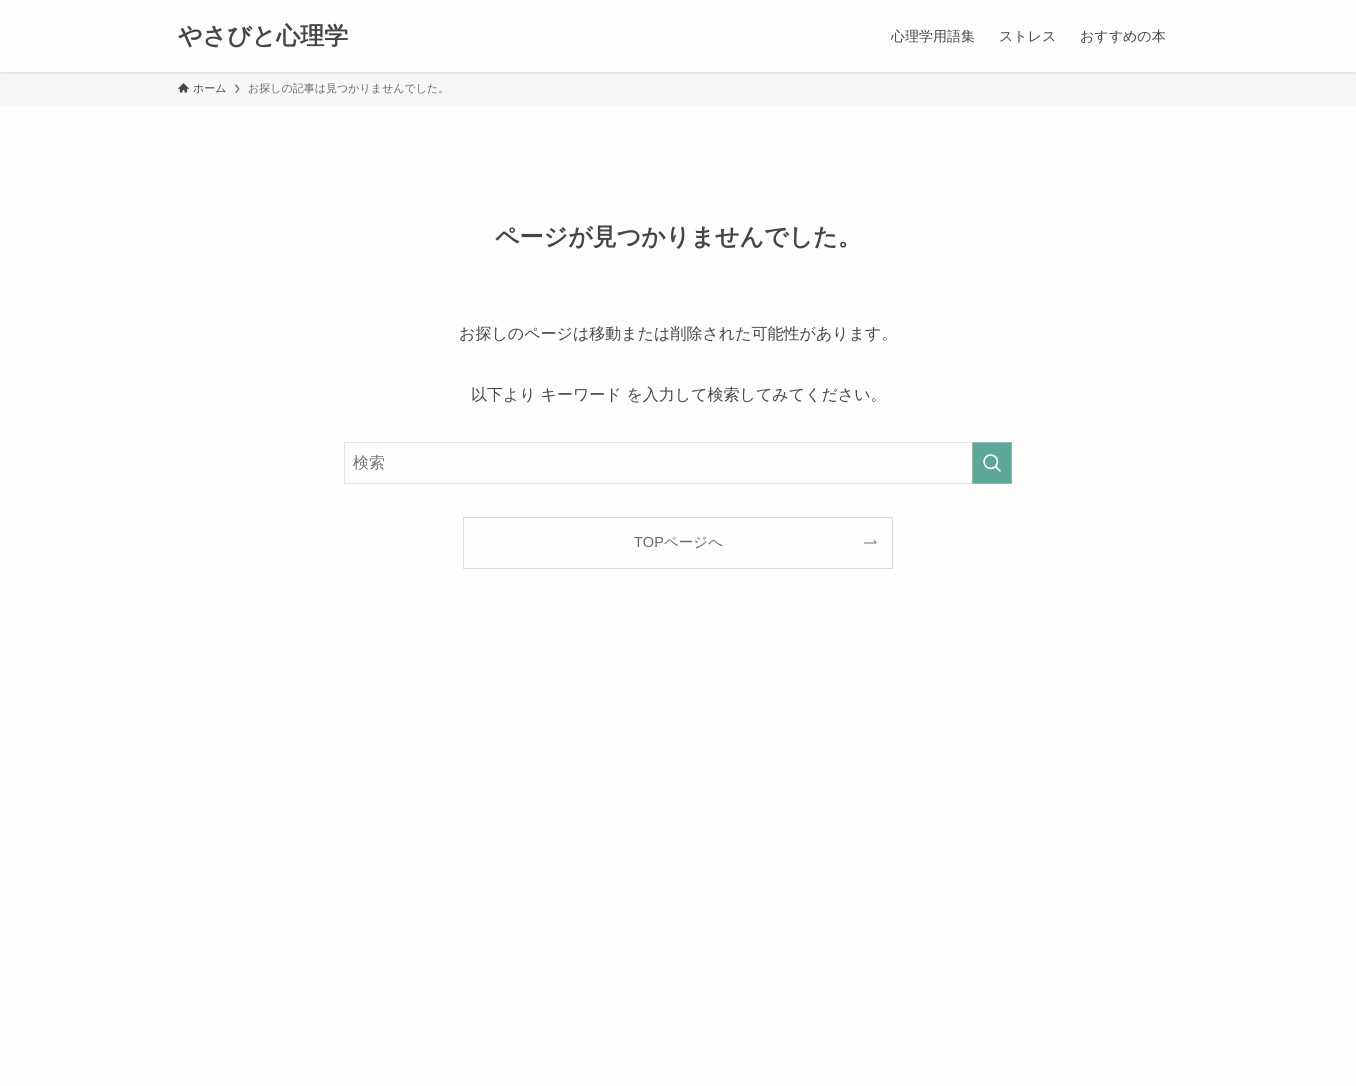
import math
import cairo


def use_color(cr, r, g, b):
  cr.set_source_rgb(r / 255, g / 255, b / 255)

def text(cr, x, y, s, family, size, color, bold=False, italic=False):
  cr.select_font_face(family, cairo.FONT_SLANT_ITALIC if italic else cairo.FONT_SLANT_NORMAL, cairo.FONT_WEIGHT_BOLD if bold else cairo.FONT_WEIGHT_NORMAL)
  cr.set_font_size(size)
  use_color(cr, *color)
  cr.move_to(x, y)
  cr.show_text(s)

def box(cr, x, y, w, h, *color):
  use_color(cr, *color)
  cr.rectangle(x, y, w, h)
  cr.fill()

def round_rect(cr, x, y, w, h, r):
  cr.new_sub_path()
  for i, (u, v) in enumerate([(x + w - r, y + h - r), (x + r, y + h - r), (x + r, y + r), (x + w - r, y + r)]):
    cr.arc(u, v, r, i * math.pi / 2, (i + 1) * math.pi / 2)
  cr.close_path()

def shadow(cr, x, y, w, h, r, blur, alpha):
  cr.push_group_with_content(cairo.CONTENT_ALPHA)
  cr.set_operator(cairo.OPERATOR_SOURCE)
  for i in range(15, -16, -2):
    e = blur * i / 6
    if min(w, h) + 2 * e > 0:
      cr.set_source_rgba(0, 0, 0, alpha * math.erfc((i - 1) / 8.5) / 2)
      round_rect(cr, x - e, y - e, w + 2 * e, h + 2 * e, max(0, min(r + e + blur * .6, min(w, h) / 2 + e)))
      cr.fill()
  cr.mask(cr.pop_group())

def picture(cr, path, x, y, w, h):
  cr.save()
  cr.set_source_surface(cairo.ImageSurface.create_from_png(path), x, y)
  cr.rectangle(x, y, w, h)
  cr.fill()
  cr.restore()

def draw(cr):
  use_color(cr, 253, 253, 253)
  cr.paint()
  box(cr, 0, 72, 1356, 34, 247, 247, 247)
  cr.save()
  cr.rectangle(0, 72, 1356, 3)
  cr.clip()
  use_color(cr, 0, 0, 0)
  shadow(cr, 0, 1, 1356, 72, 0, 2, 0.12)
  cr.restore()
  picture(cr, "img_01.png", 178, 83, 11, 10)
  use_color(cr, 105, 105, 105)
  cr.new_path()
  cr.move_to(236.5, 84.5)
  cr.line_to(235, 85)
  cr.line_to(238, 89)
  cr.line_to(235, 93)
  cr.line_to(236.5, 93)
  cr.line_to(239.5, 89)
  cr.close_path()
  cr.fill()
  cr.rectangle(344.5, 442.5, 667, 41)
  use_color(cr, 227, 227, 227)
  cr.set_line_width(1)
  cr.stroke()
  use_color(cr, 93, 167, 151)
  cr.rectangle(972.5, 442.5, 39, 41)
  cr.fill_preserve()
  use_color(cr, 146, 183, 175)
  cr.stroke()
  picture(cr, "img_02.png", 983, 454, 18, 18)
  cr.rectangle(463.5, 517.5, 429, 51)
  use_color(cr, 220, 220, 220)
  cr.stroke()
  picture(cr, "img_03.png", 864, 540, 13, 4)
  text(cr, 178, 44, "やさびと心理学", "WenQuanYi Zen Hei", 24, (69, 69, 69), bold=True)
  text(cr, 891, 41, "心理学用語集", "WenQuanYi Zen Hei Medium", 14, (69, 69, 69))
  text(cr, 999, 41, "ストレス", "WenQuanYi Zen Hei Medium", 14, (69, 69, 69))
  text(cr, 1080, 41, "おすすめの本", "WenQuanYi Zen Hei Medium", 14, (69, 69, 69))
  text(cr, 193, 92, "ホーム", "WenQuanYi Zen Hei Medium", 11, (69, 69, 69))
  text(cr, 248, 92, "お探しの記事は見つかりませんでした。", "WenQuanYi Zen Hei Medium", 11, (105, 105, 105))
  text(cr, 495, 245, "ページが見つかりませんでした。", "WenQuanYi Zen Hei", 24, (69, 69, 69), bold=True)
  text(cr, 459, 339, "お探しのページは移動または削除された可能性があります。", "WenQuanYi Zen Hei Medium", 16, (69, 69, 69))
  text(cr, 471, 400, "以下より キーワード を入力して検索してみてください。", "WenQuanYi Zen Hei Medium", 16, (69, 69, 69))
  text(cr, 353, 468, "検索", "WenQuanYi Zen Hei Medium", 16, (117, 117, 117))
  text(cr, 634, 547, "TOP", "Liberation Sans", 14.5, (105, 105, 105))
  text(cr, 664, 547, "ページへ", "WenQuanYi Zen Hei Medium", 14.5, (105, 105, 105))


surface = cairo.ImageSurface(cairo.FORMAT_RGB24, 1356, 1086)
cr = cairo.Context(surface)
options = cairo.FontOptions()
options.set_hint_metrics(cairo.HINT_METRICS_OFF)
options.set_hint_style(cairo.HINT_STYLE_NONE)
cr.set_font_options(options)
cr.set_miter_limit(4)
draw(cr)
surface.write_to_png("out.png")
